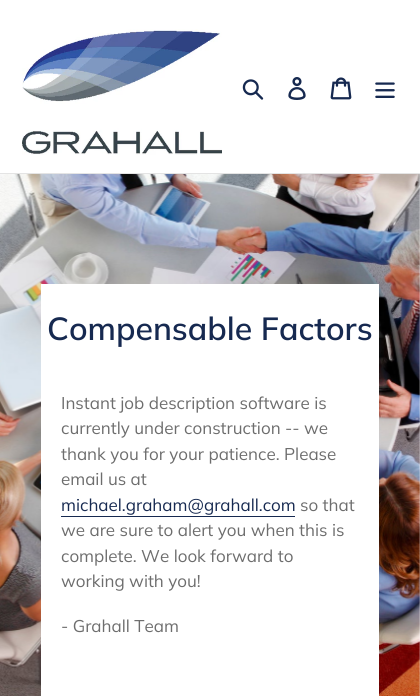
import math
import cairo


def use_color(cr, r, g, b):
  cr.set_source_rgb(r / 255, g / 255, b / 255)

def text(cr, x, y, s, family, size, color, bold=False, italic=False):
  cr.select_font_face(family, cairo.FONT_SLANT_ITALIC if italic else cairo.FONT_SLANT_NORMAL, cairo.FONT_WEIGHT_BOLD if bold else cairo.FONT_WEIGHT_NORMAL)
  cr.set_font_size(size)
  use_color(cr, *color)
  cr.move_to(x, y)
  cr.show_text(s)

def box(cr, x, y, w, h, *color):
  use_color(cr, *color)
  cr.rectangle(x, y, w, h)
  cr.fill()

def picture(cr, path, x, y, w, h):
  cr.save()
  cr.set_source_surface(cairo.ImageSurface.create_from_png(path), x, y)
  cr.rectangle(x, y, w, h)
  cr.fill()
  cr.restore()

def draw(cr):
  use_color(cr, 255, 255, 255)
  cr.paint()
  picture(cr, "img_01.png", 0, 174, 420, 522)
  box(cr, 0, 173, 420, 1, 228, 228, 228)
  picture(cr, "img_02.png", 22, 29, 200, 126)
  picture(cr, "img_03.png", 242, 79, 22, 21)
  picture(cr, "img_04.png", 288, 77, 18, 23)
  picture(cr, "img_05.png", 330, 77, 22, 23)
  picture(cr, "img_06.png", 375, 82, 20, 16)
  box(cr, 41, 284, 338, 412, 255, 255, 255)
  box(cr, 61, 516, 234, 1, 22, 41, 80)
  text(cr, 47, 340, "Compensable Factors", "Muli SemiBold", 32, (22, 41, 80))
  text(cr, 61, 409, "Instant job description software is", "Muli", 17, (109, 109, 109))
  text(cr, 61, 434, "currently under construction -- we", "Muli", 17, (109, 109, 109))
  text(cr, 61, 460, "thank you for your patience. Please", "Muli", 17, (109, 109, 109))
  text(cr, 61, 485, "email us at", "Muli", 17, (109, 109, 109))
  text(cr, 61, 511, "michael.graham@grahall.com", "Muli", 17, (22, 41, 80))
  text(cr, 300, 511, "so that", "Muli", 17, (109, 109, 109))
  text(cr, 61, 536, "we are sure to alert you when this is", "Muli", 17, (109, 109, 109))
  text(cr, 61, 562, "complete. We look forward to", "Muli", 17, (109, 109, 109))
  text(cr, 61, 587, "working with you!", "Muli", 17, (109, 109, 109))
  text(cr, 61, 632, "- Grahall Team", "Muli", 17, (109, 109, 109))


surface = cairo.ImageSurface(cairo.FORMAT_RGB24, 420, 696)
cr = cairo.Context(surface)
options = cairo.FontOptions()
options.set_hint_metrics(cairo.HINT_METRICS_OFF)
options.set_hint_style(cairo.HINT_STYLE_NONE)
cr.set_font_options(options)
cr.set_miter_limit(4)
draw(cr)
surface.write_to_png("out.png")
